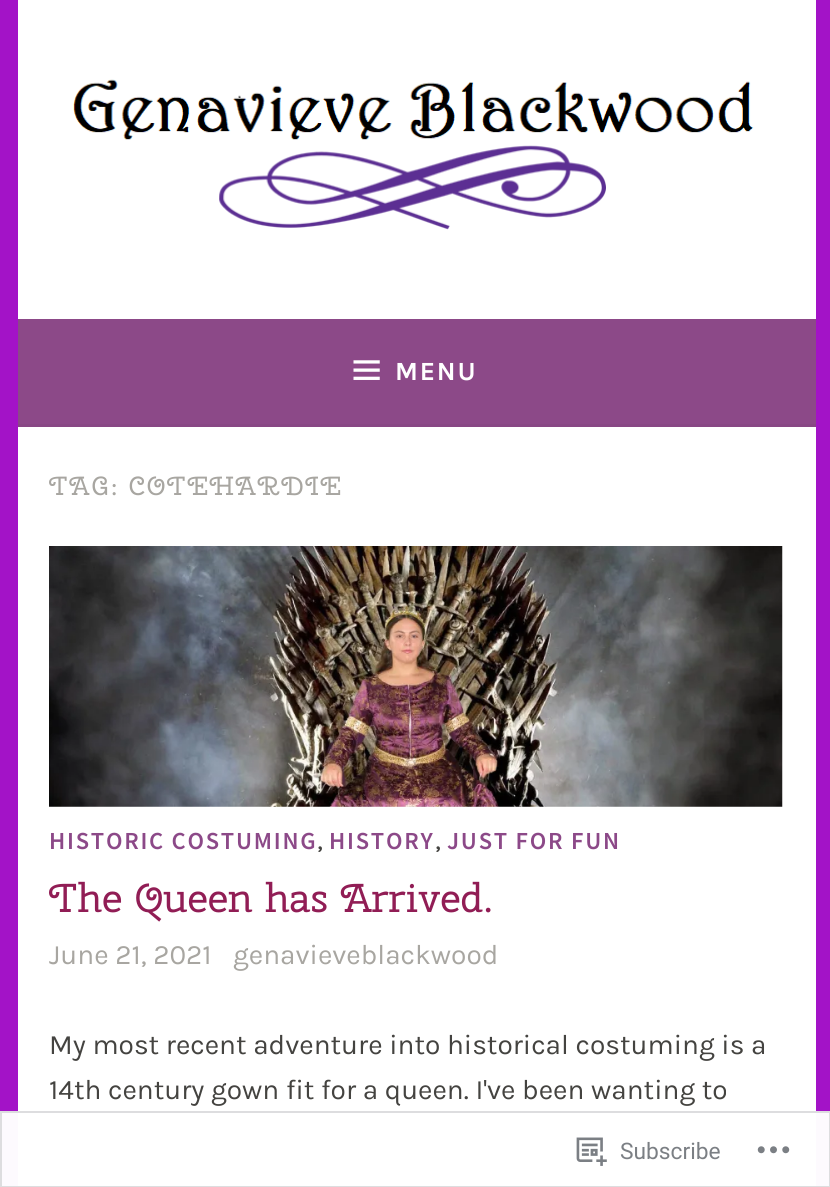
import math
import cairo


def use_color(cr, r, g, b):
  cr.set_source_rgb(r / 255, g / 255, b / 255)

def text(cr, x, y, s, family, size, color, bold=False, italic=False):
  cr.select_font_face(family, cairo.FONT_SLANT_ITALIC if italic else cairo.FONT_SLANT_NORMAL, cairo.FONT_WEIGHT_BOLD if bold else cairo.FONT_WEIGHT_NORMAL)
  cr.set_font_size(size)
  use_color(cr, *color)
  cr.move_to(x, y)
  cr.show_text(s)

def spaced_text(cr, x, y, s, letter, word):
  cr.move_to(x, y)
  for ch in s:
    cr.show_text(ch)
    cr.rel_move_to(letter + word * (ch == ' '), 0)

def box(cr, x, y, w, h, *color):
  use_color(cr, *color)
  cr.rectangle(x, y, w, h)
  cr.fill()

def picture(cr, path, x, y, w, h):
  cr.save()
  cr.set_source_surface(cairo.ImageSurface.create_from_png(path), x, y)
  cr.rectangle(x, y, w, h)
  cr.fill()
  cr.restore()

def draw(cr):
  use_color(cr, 163, 19, 199)
  cr.paint()
  box(cr, 0, 1111, 830, 76, 253, 250, 254)
  box(cr, 18, 0, 798, 319, 255, 255, 255)
  picture(cr, "img_01.png", 73, 79, 681, 151)
  box(cr, 18, 319, 798, 105, 140, 73, 136)
  box(cr, 18, 424, 798, 3, 136, 71, 132)
  picture(cr, "img_02.png", 353, 360, 27, 20)
  box(cr, 18, 427, 798, 760, 255, 255, 255)
  picture(cr, "img_03.png", 49, 546, 734, 261)
  cr.rectangle(1, 1112, 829, 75)
  cr.set_source_rgba(0.863, 0.863, 0.871, 0.98)
  cr.stroke()
  picture(cr, "img_04.png", 576, 1137, 31, 29)
  picture(cr, "img_05.png", 757, 1146, 33, 8)
  cr.select_font_face("Karla", cairo.FONT_SLANT_NORMAL, cairo.FONT_WEIGHT_BOLD)
  cr.set_font_size(26.25)
  use_color(cr, 255, 255, 255)
  spaced_text(cr, 395, 380, "MENU", 1.75, 0)
  cr.select_font_face("Cherry Swash")
  use_color(cr, 168, 166, 161)
  spaced_text(cr, 49, 495, "TAG: COTEHARDIE", 1.75, 0)
  cr.select_font_face("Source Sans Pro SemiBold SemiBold")
  cr.set_font_size(24.5)
  use_color(cr, 140, 73, 136)
  spaced_text(cr, 49, 849, "HISTORIC COSTUMING", 1.75, 0)
  text(cr, 317, 849, ",", "Karla", 28, (68, 67, 64))
  cr.select_font_face("Source Sans Pro SemiBold SemiBold")
  cr.set_font_size(24.5)
  use_color(cr, 140, 73, 136)
  spaced_text(cr, 329, 849, "HISTORY", 1.75, 0)
  text(cr, 435, 849, ",", "Karla", 28, (68, 67, 64))
  cr.select_font_face("Source Sans Pro SemiBold SemiBold")
  cr.set_font_size(24.5)
  use_color(cr, 140, 73, 136)
  spaced_text(cr, 447, 849, "JUST FOR FUN", 1.75, 0)
  text(cr, 49, 912, "The Queen has Arrived.", "Cherry Swash", 40.25, (145, 29, 85))
  text(cr, 49, 964, "June 21, 2021", "Karla", 28, (168, 166, 161))
  text(cr, 233, 964, "genavieveblackwood", "Karla", 28, (168, 166, 161))
  text(cr, 49, 1054, "My most recent adventure into historical costuming is a", "Karla", 28, (68, 67, 64))
  text(cr, 49, 1099, "14th century gown fit for a queen. I've been wanting to", "Karla", 28, (68, 67, 64))
  text(cr, 620, 1159, "Subscribe", "Roboto", 22.75, (123, 127, 132))


surface = cairo.ImageSurface(cairo.FORMAT_RGB24, 830, 1187)
cr = cairo.Context(surface)
options = cairo.FontOptions()
options.set_hint_metrics(cairo.HINT_METRICS_OFF)
options.set_hint_style(cairo.HINT_STYLE_NONE)
cr.set_font_options(options)
cr.set_miter_limit(4)
draw(cr)
surface.write_to_png("out.png")
